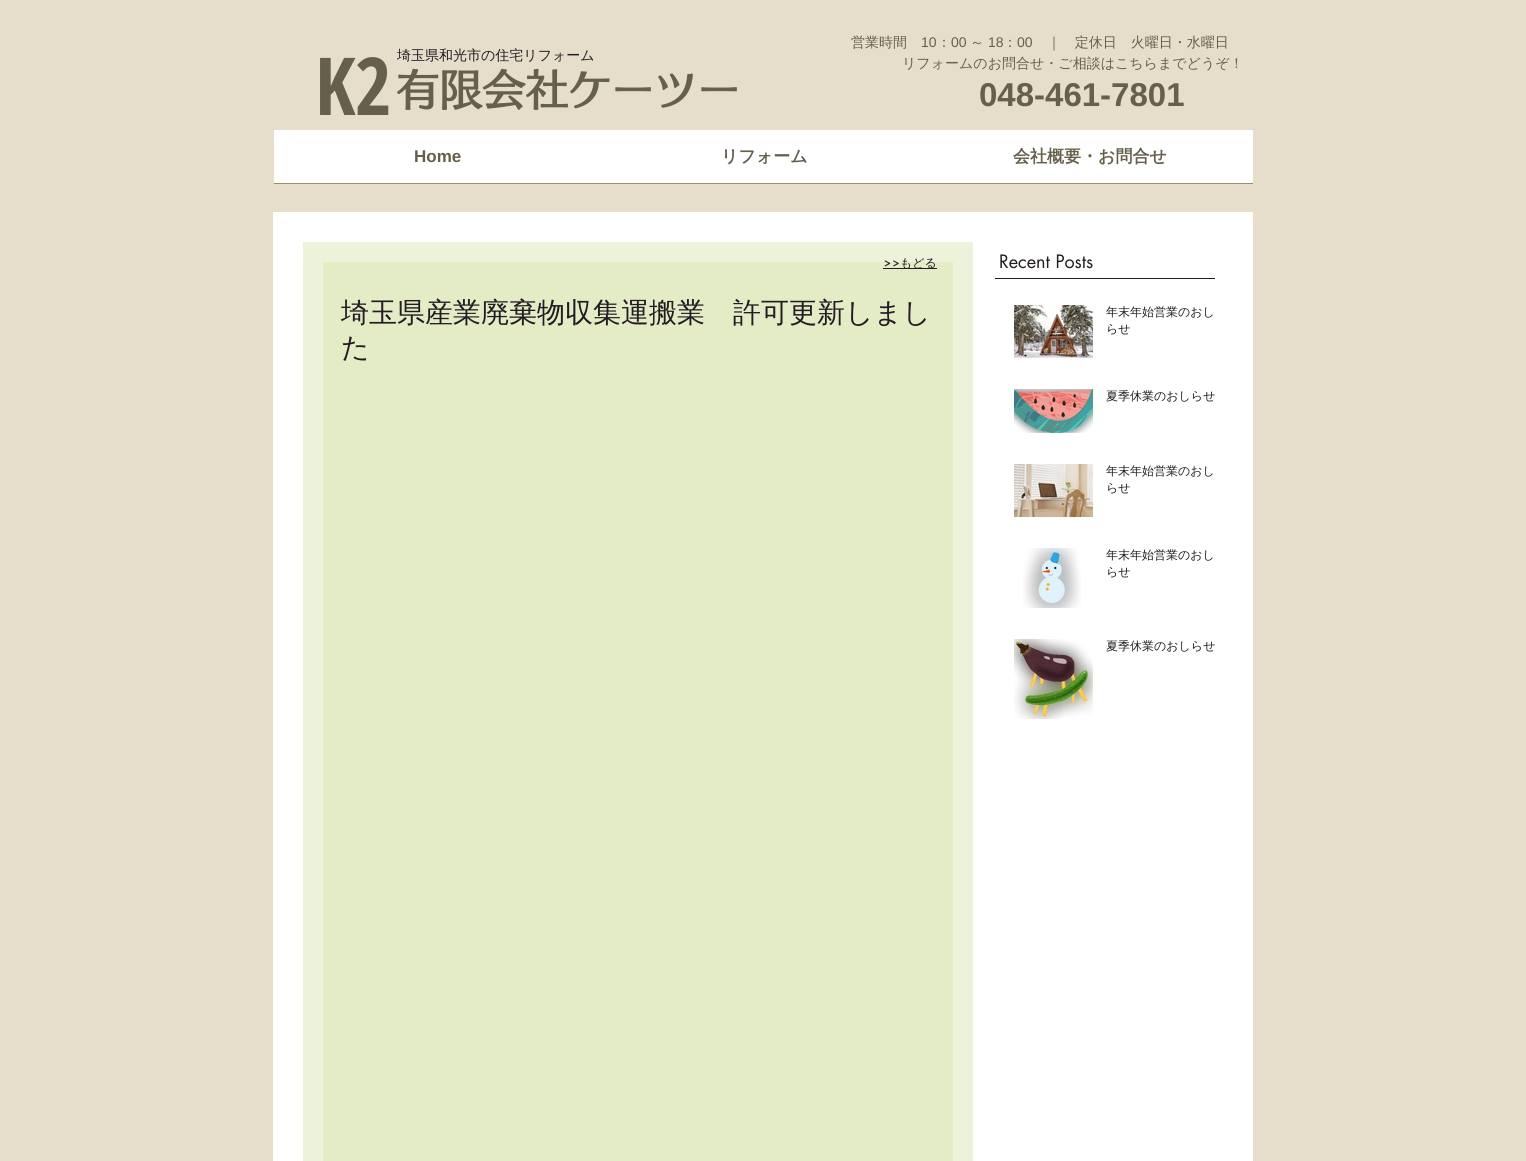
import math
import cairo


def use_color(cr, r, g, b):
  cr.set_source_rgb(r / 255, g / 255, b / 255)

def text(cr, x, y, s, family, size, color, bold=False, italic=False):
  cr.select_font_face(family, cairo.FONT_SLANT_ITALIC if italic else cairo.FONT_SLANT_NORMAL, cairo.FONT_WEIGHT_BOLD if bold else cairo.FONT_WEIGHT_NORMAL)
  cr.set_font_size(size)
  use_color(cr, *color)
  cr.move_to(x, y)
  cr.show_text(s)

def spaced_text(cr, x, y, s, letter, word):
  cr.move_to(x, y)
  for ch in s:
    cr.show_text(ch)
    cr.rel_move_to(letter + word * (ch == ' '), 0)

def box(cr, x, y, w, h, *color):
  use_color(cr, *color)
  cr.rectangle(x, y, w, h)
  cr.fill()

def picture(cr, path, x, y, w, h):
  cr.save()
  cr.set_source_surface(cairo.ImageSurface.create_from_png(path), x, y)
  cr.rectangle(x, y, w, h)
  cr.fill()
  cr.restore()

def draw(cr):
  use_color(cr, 230, 222, 202)
  cr.paint()
  box(cr, 274, 130, 979, 53, 255, 255, 255)
  box(cr, 274, 183, 979, 1, 153, 142, 114)
  box(cr, 273, 212, 980, 949, 255, 255, 255)
  box(cr, 303, 242, 670, 919, 237, 243, 218)
  box(cr, 323, 262, 630, 899, 227, 236, 196)
  box(cr, 883, 268, 54, 1, 34, 27, 35)
  box(cr, 995, 278, 220, 1, 34, 27, 35)
  picture(cr, "img_01.png", 1014, 305, 79, 53)
  picture(cr, "img_02.png", 1014, 389, 79, 44)
  picture(cr, "img_03.png", 1014, 389, 79, 44)
  picture(cr, "img_04.png", 1014, 464, 79, 53)
  picture(cr, "img_05.png", 1023, 548, 58, 60)
  picture(cr, "img_06.png", 1038, 552, 27, 51)
  picture(cr, "img_07.png", 1014, 639, 79, 80)
  picture(cr, "img_08.png", 1016, 641, 72, 76)
  text(cr, 851, 47, "営業時間", "WenQuanYi Zen Hei Medium", 14, (102, 95, 76))
  text(cr, 921, 47, "10", "Liberation Sans", 14, (102, 95, 76))
  text(cr, 937, 47, "：", "WenQuanYi Zen Hei Medium", 14, (102, 95, 76))
  text(cr, 951, 47, "00", "Liberation Sans", 14, (102, 95, 76))
  text(cr, 970, 47, "～", "WenQuanYi Zen Hei Medium", 14, (102, 95, 76))
  text(cr, 988, 47, "18", "Liberation Sans", 14, (102, 95, 76))
  text(cr, 1003, 47, "：", "WenQuanYi Zen Hei Medium", 14, (102, 95, 76))
  text(cr, 1017, 47, "00", "Liberation Sans", 14, (102, 95, 76))
  text(cr, 1047, 47, "｜　定休日　火曜日・水曜日", "WenQuanYi Zen Hei Medium", 14, (102, 95, 76))
  text(cr, 397, 60, "埼玉県和光市の住宅リフォーム", "WenQuanYi Zen Hei Medium", 14, (34, 27, 35))
  text(cr, 902, 68, "リフォームのお問合せ・ご相談はこちらまでどうぞ！", "WenQuanYi Zen Hei Medium", 14, (102, 95, 76))
  cr.select_font_face("Open Sans Condensed", cairo.FONT_SLANT_NORMAL, cairo.FONT_WEIGHT_BOLD)
  cr.set_font_size(80)
  spaced_text(cr, 315, 115, "K2", -1, 0)
  text(cr, 396, 106, "有限会社ケーツー", "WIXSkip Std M", 43, (102, 95, 76), bold=True)
  text(cr, 979, 106, "048-461-7801", "Liberation Sans", 33, (102, 95, 76), bold=True)
  text(cr, 414, 162, "Home", "Liberation Sans", 17, (102, 95, 76), bold=True)
  text(cr, 721, 162, "リフォーム", "WenQuanYi Zen Hei", 17, (102, 95, 76), bold=True)
  text(cr, 1013, 162, "会社概要・お問合せ", "WenQuanYi Zen Hei", 17, (102, 95, 76), bold=True)
  text(cr, 883, 267, ">>", "Basic", 12, (34, 27, 35))
  text(cr, 900, 267, "もどる", "WenQuanYi Zen Hei Medium", 12, (34, 27, 35))
  text(cr, 999, 268, "Recent Posts", "futura", 18, (34, 27, 35))
  text(cr, 341, 322, "埼玉県産業廃棄物収集運搬業　許可更新しまし", "WenQuanYi Zen Hei Medium", 28, (34, 27, 35))
  text(cr, 341, 357, "た", "WenQuanYi Zen Hei Medium", 28, (34, 27, 35))
  text(cr, 1106, 316, "年末年始営業のおし", "WenQuanYi Zen Hei Medium", 12, (34, 27, 35))
  text(cr, 1106, 333, "らせ", "WenQuanYi Zen Hei Medium", 12, (34, 27, 35))
  text(cr, 1106, 400, "夏季休業のおしらせ", "WenQuanYi Zen Hei Medium", 12, (34, 27, 35))
  text(cr, 1106, 475, "年末年始営業のおし", "WenQuanYi Zen Hei Medium", 12, (34, 27, 35))
  text(cr, 1106, 492, "らせ", "WenQuanYi Zen Hei Medium", 12, (34, 27, 35))
  text(cr, 1106, 559, "年末年始営業のおし", "WenQuanYi Zen Hei Medium", 12, (34, 27, 35))
  text(cr, 1106, 576, "らせ", "WenQuanYi Zen Hei Medium", 12, (34, 27, 35))
  text(cr, 1106, 650, "夏季休業のおしらせ", "WenQuanYi Zen Hei Medium", 12, (34, 27, 35))


surface = cairo.ImageSurface(cairo.FORMAT_RGB24, 1526, 1161)
cr = cairo.Context(surface)
options = cairo.FontOptions()
options.set_hint_metrics(cairo.HINT_METRICS_OFF)
options.set_hint_style(cairo.HINT_STYLE_NONE)
cr.set_font_options(options)
cr.set_miter_limit(4)
draw(cr)
surface.write_to_png("out.png")
